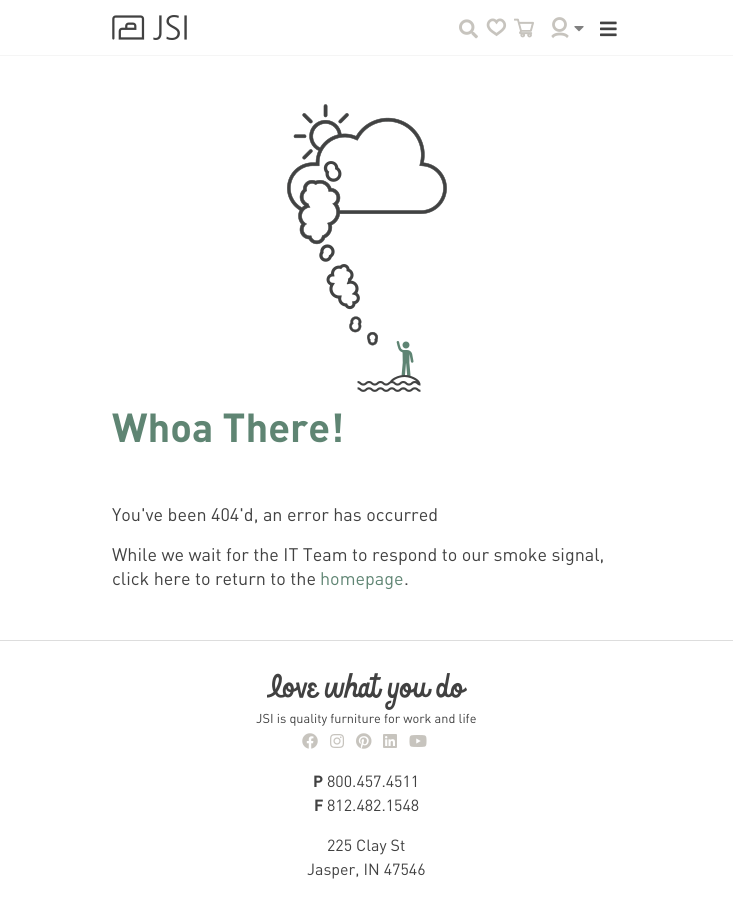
import math
import cairo


def use_color(cr, r, g, b):
  cr.set_source_rgb(r / 255, g / 255, b / 255)

def text(cr, x, y, s, family, size, color, bold=False, italic=False):
  cr.select_font_face(family, cairo.FONT_SLANT_ITALIC if italic else cairo.FONT_SLANT_NORMAL, cairo.FONT_WEIGHT_BOLD if bold else cairo.FONT_WEIGHT_NORMAL)
  cr.set_font_size(size)
  use_color(cr, *color)
  cr.move_to(x, y)
  cr.show_text(s)

def box(cr, x, y, w, h, *color):
  use_color(cr, *color)
  cr.rectangle(x, y, w, h)
  cr.fill()

def round_rect(cr, x, y, w, h, r):
  cr.new_sub_path()
  for i, (u, v) in enumerate([(x + w - r, y + h - r), (x + r, y + h - r), (x + r, y + r), (x + w - r, y + r)]):
    cr.arc(u, v, r, i * math.pi / 2, (i + 1) * math.pi / 2)
  cr.close_path()

def picture(cr, path, x, y, w, h):
  cr.save()
  cr.set_source_surface(cairo.ImageSurface.create_from_png(path), x, y)
  cr.rectangle(x, y, w, h)
  cr.fill()
  cr.restore()

def draw(cr):
  use_color(cr, 255, 255, 255)
  cr.paint()
  box(cr, 0, 55, 733, 1, 245, 245, 245)
  picture(cr, "img_01.png", 112, 15, 75, 25)
  picture(cr, "img_02.png", 459, 19, 19, 20)
  cr.new_path()
  cr.move_to(496.5, 22)
  cr.curve_to(492.5, 16.5, 485.5, 22.5, 489, 28)
  cr.curve_to(490.5, 31, 494, 32.5, 496.5, 34.5)
  cr.curve_to(499, 32.5, 502, 31, 504, 28)
  cr.curve_to(507, 22.5, 500, 16.5, 496.5, 22)
  cr.close_path()
  use_color(cr, 199, 196, 190)
  cr.set_line_width(2.7)
  cr.stroke()
  picture(cr, "img_03.png", 514, 18, 20, 20)
  cr.arc(559.5, 24.5, 6, 0, 2 * math.pi)
  cr.set_line_width(2.8)
  cr.stroke()
  cr.save()
  round_rect(cr, 550, 16, 20, 25, 10)
  cr.clip()
  cr.new_path()
  cr.move_to(551, 42)
  cr.curve_to(551, 36, 554.5, 34, 560, 34)
  cr.curve_to(564.5, 34, 569, 35.5, 569, 41)
  cr.stroke()
  cr.restore()
  picture(cr, "img_04.png", 574, 26, 10, 6)
  picture(cr, "img_05.png", 600, 21, 17, 16)
  picture(cr, "img_06.png", 287, 104, 160, 288)
  box(cr, 0, 640, 733, 1, 221, 221, 221)
  picture(cr, "img_07.png", 267, 673, 200, 37)
  picture(cr, "img_08.png", 302, 733, 16, 16)
  picture(cr, "img_09.png", 330, 734, 14, 14)
  picture(cr, "img_10.png", 356, 733, 16, 16)
  picture(cr, "img_11.png", 383, 734, 14, 14)
  picture(cr, "img_12.png", 409, 735, 18, 12)
  text(cr, 112, 442, "Whoa There!", "DIN", 40, (95, 133, 115), bold=True)
  text(cr, 112, 521, "You've been 404'd, an error has occurred", "DIN", 18, (65, 65, 65))
  text(cr, 112, 561, "While we wait for the IT Team to respond to our smoke signal,", "DIN", 18, (65, 65, 65))
  text(cr, 112, 585, "click here to return to the", "DIN", 18, (65, 65, 65))
  text(cr, 320, 585, "homepage", "DIN", 18, (95, 133, 115))
  text(cr, 404, 585, ".", "DIN", 18, (65, 65, 65))
  text(cr, 256, 723, "JSI is quality furniture for work and life", "DIN", 12.75, (65, 65, 65))
  text(cr, 313, 787, "P", "DIN", 16, (65, 65, 65), bold=True)
  text(cr, 327, 787, "800.457.4511", "DIN", 16, (65, 65, 65))
  text(cr, 314, 811, "F", "DIN", 16, (65, 65, 65), bold=True)
  text(cr, 327, 811, "812.482.1548", "DIN", 16, (65, 65, 65))
  text(cr, 327, 851, "225 Clay St", "DIN", 16, (65, 65, 65))
  text(cr, 307, 875, "Jasper, IN 47546", "DIN", 16, (65, 65, 65))


surface = cairo.ImageSurface(cairo.FORMAT_RGB24, 733, 904)
cr = cairo.Context(surface)
options = cairo.FontOptions()
options.set_hint_metrics(cairo.HINT_METRICS_OFF)
options.set_hint_style(cairo.HINT_STYLE_NONE)
cr.set_font_options(options)
cr.set_miter_limit(4)
draw(cr)
surface.write_to_png("out.png")
